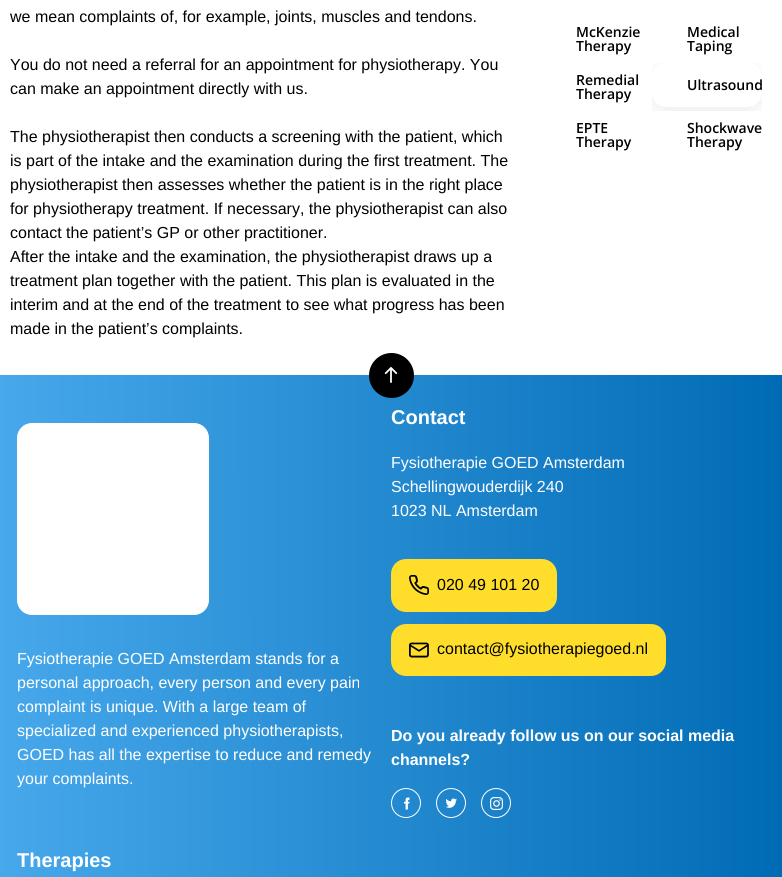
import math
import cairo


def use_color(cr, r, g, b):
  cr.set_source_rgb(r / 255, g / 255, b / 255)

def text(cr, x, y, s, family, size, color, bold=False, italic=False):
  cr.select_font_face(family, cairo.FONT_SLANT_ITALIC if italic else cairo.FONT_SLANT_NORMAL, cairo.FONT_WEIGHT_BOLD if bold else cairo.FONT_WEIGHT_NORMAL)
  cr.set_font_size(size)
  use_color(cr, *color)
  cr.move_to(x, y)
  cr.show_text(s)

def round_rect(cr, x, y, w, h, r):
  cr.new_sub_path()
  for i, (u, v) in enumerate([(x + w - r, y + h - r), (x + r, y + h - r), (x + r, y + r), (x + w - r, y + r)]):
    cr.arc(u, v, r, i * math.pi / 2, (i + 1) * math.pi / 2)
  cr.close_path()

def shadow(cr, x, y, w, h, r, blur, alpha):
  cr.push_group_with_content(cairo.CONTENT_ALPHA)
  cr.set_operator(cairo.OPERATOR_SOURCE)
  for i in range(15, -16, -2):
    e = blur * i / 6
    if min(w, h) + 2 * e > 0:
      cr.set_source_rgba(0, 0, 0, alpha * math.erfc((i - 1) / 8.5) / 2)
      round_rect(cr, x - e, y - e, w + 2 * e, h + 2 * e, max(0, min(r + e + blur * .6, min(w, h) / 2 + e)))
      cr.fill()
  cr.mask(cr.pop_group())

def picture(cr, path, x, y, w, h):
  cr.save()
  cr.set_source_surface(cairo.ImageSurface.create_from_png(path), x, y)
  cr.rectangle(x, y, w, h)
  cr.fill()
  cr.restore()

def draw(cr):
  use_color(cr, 255, 255, 255)
  cr.paint()
  cr.save()
  cr.rectangle(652, 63, 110, 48)
  cr.clip()
  cr.set_fill_rule(cairo.FILL_RULE_EVEN_ODD)
  cr.new_path()
  cr.move_to(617, 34)
  cr.line_to(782, 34)
  cr.line_to(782, 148)
  cr.line_to(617, 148)
  cr.close_path()
  cr.move_to(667, 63)
  cr.line_to(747, 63)
  cr.curve_to(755.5, 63, 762, 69.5, 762, 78)
  cr.line_to(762, 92)
  cr.curve_to(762, 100.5, 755.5, 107, 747, 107)
  cr.line_to(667, 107)
  cr.curve_to(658.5, 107, 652, 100.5, 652, 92)
  cr.line_to(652, 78)
  cr.curve_to(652, 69.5, 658.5, 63, 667, 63)
  cr.close_path()
  cr.clip()
  use_color(cr, 0, 0, 0)
  shadow(cr, 656, 73, 102, 36, 11, 12.5, 0.1)
  cr.restore()
  gradient = cairo.LinearGradient(782, 849, 0, 850)
  gradient.add_color_stop_rgba(0, 0, 0.42, 0.71, 1)
  gradient.add_color_stop_rgba(1, 0.278, 0.659, 0.922, 1)
  cr.set_source(gradient)
  cr.rectangle(0, 375, 782, 502)
  cr.fill()
  use_color(cr, 0, 0, 0)
  cr.arc(391.5, 375.5, 22.5, 0, 2 * math.pi)
  cr.fill()
  picture(cr, "img_01.png", 384, 367, 14, 16)
  use_color(cr, 255, 255, 255)
  round_rect(cr, 17, 423, 192, 192, 15)
  cr.fill()
  use_color(cr, 254, 222, 42)
  round_rect(cr, 392, 560, 164, 51, 14)
  cr.fill_preserve()
  cr.stroke()
  picture(cr, "img_02.png", 409, 575, 20, 20)
  round_rect(cr, 392, 625, 273, 50, 14)
  cr.fill_preserve()
  cr.stroke()
  picture(cr, "img_03.png", 409, 642, 20, 16)
  cr.arc(406, 803, 14.5, 0, 2 * math.pi)
  use_color(cr, 255, 255, 255)
  cr.set_line_width(1)
  cr.stroke()
  picture(cr, "img_04.png", 404, 797, 6, 13)
  cr.arc(451, 803, 14.5, 0, 2 * math.pi)
  cr.stroke()
  picture(cr, "img_05.png", 445, 798, 12, 10)
  cr.arc(496, 803, 14.5, 0, 2 * math.pi)
  cr.stroke()
  picture(cr, "img_06.png", 490, 797, 13, 13)
  text(cr, 10, 22, "we mean complaints of, for example, joints, muscles and tendons.", "Liberation Sans", 16, (0, 0, 0))
  text(cr, 10, 70, "You do not need a referral for an appointment for physiotherapy. You", "Liberation Sans", 16, (0, 0, 0))
  text(cr, 10, 94, "can make an appointment directly with us.", "Liberation Sans", 16, (0, 0, 0))
  text(cr, 10, 142, "The physiotherapist then conducts a screening with the patient, which", "Liberation Sans", 16, (0, 0, 0))
  text(cr, 10, 166, "is part of the intake and the examination during the first treatment. The", "Liberation Sans", 16, (0, 0, 0))
  text(cr, 10, 190, "physiotherapist then assesses whether the patient is in the right place", "Liberation Sans", 16, (0, 0, 0))
  text(cr, 10, 214, "for physiotherapy treatment. If necessary, the physiotherapist can also", "Liberation Sans", 16, (0, 0, 0))
  text(cr, 10, 238, "contact the patient’s GP or other practitioner.", "Liberation Sans", 16, (0, 0, 0))
  text(cr, 10, 262, "After the intake and the examination, the physiotherapist draws up a", "Liberation Sans", 16, (0, 0, 0))
  text(cr, 10, 286, "treatment plan together with the patient. This plan is evaluated in the", "Liberation Sans", 16, (0, 0, 0))
  text(cr, 10, 310, "interim and at the end of the treatment to see what progress has been", "Liberation Sans", 16, (0, 0, 0))
  text(cr, 10, 334, "made in the patient’s complaints.", "Liberation Sans", 16, (0, 0, 0))
  text(cr, 576, 37, "McKenzie", "Open Sans SemiBold", 14, (0, 0, 0))
  text(cr, 576, 51, "Therapy", "Open Sans SemiBold", 14, (0, 0, 0))
  text(cr, 687, 37, "Medical", "Open Sans SemiBold", 14, (0, 0, 0))
  text(cr, 687, 51, "Taping", "Open Sans SemiBold", 14, (0, 0, 0))
  text(cr, 576, 85, "Remedial", "Open Sans SemiBold", 14, (0, 0, 0))
  text(cr, 576, 99, "Therapy", "Open Sans SemiBold", 14, (0, 0, 0))
  text(cr, 687, 90, "Ultrasound", "Open Sans SemiBold", 14, (0, 0, 0))
  text(cr, 576, 133, "EPTE", "Open Sans SemiBold", 14, (0, 0, 0))
  text(cr, 576, 147, "Therapy", "Open Sans SemiBold", 14, (0, 0, 0))
  text(cr, 687, 133, "Shockwave", "Open Sans SemiBold", 14, (0, 0, 0))
  text(cr, 687, 147, "Therapy", "Open Sans SemiBold", 14, (0, 0, 0))
  text(cr, 17, 664, "Fysiotherapie GOED Amsterdam stands for a", "Liberation Sans", 16, (255, 255, 255))
  text(cr, 17, 688, "personal approach, every person and every pain", "Liberation Sans", 16, (255, 255, 255))
  text(cr, 17, 712, "complaint is unique. With a large team of", "Liberation Sans", 16, (255, 255, 255))
  text(cr, 17, 736, "specialized and experienced physiotherapists,", "Liberation Sans", 16, (255, 255, 255))
  text(cr, 17, 760, "GOED has all the expertise to reduce and remedy", "Liberation Sans", 16, (255, 255, 255))
  text(cr, 17, 784, "your complaints.", "Liberation Sans", 16, (255, 255, 255))
  text(cr, 391, 424, "Contact", "Liberation Sans", 20, (255, 255, 255), bold=True)
  text(cr, 391, 468, "Fysiotherapie GOED Amsterdam", "Liberation Sans", 16, (255, 255, 255))
  text(cr, 391, 492, "Schellingwouderdijk 240", "Liberation Sans", 16, (255, 255, 255))
  text(cr, 391, 516, "1023 NL Amsterdam", "Liberation Sans", 16, (255, 255, 255))
  text(cr, 437, 590, "020 49 101 20", "Liberation Sans", 16, (0, 0, 0))
  text(cr, 437, 654, "contact@fysiotherapiegoed.nl", "Liberation Sans", 16, (0, 0, 0))
  text(cr, 391, 741, "Do you already follow us on our social media", "Liberation Sans", 16, (255, 255, 255), bold=True)
  text(cr, 391, 765, "channels?", "Liberation Sans", 16, (255, 255, 255), bold=True)
  text(cr, 17, 867, "Therapies", "Liberation Sans", 20, (255, 255, 255), bold=True)


surface = cairo.ImageSurface(cairo.FORMAT_RGB24, 782, 877)
cr = cairo.Context(surface)
options = cairo.FontOptions()
options.set_hint_metrics(cairo.HINT_METRICS_OFF)
options.set_hint_style(cairo.HINT_STYLE_NONE)
cr.set_font_options(options)
cr.set_miter_limit(4)
draw(cr)
surface.write_to_png("out.png")
